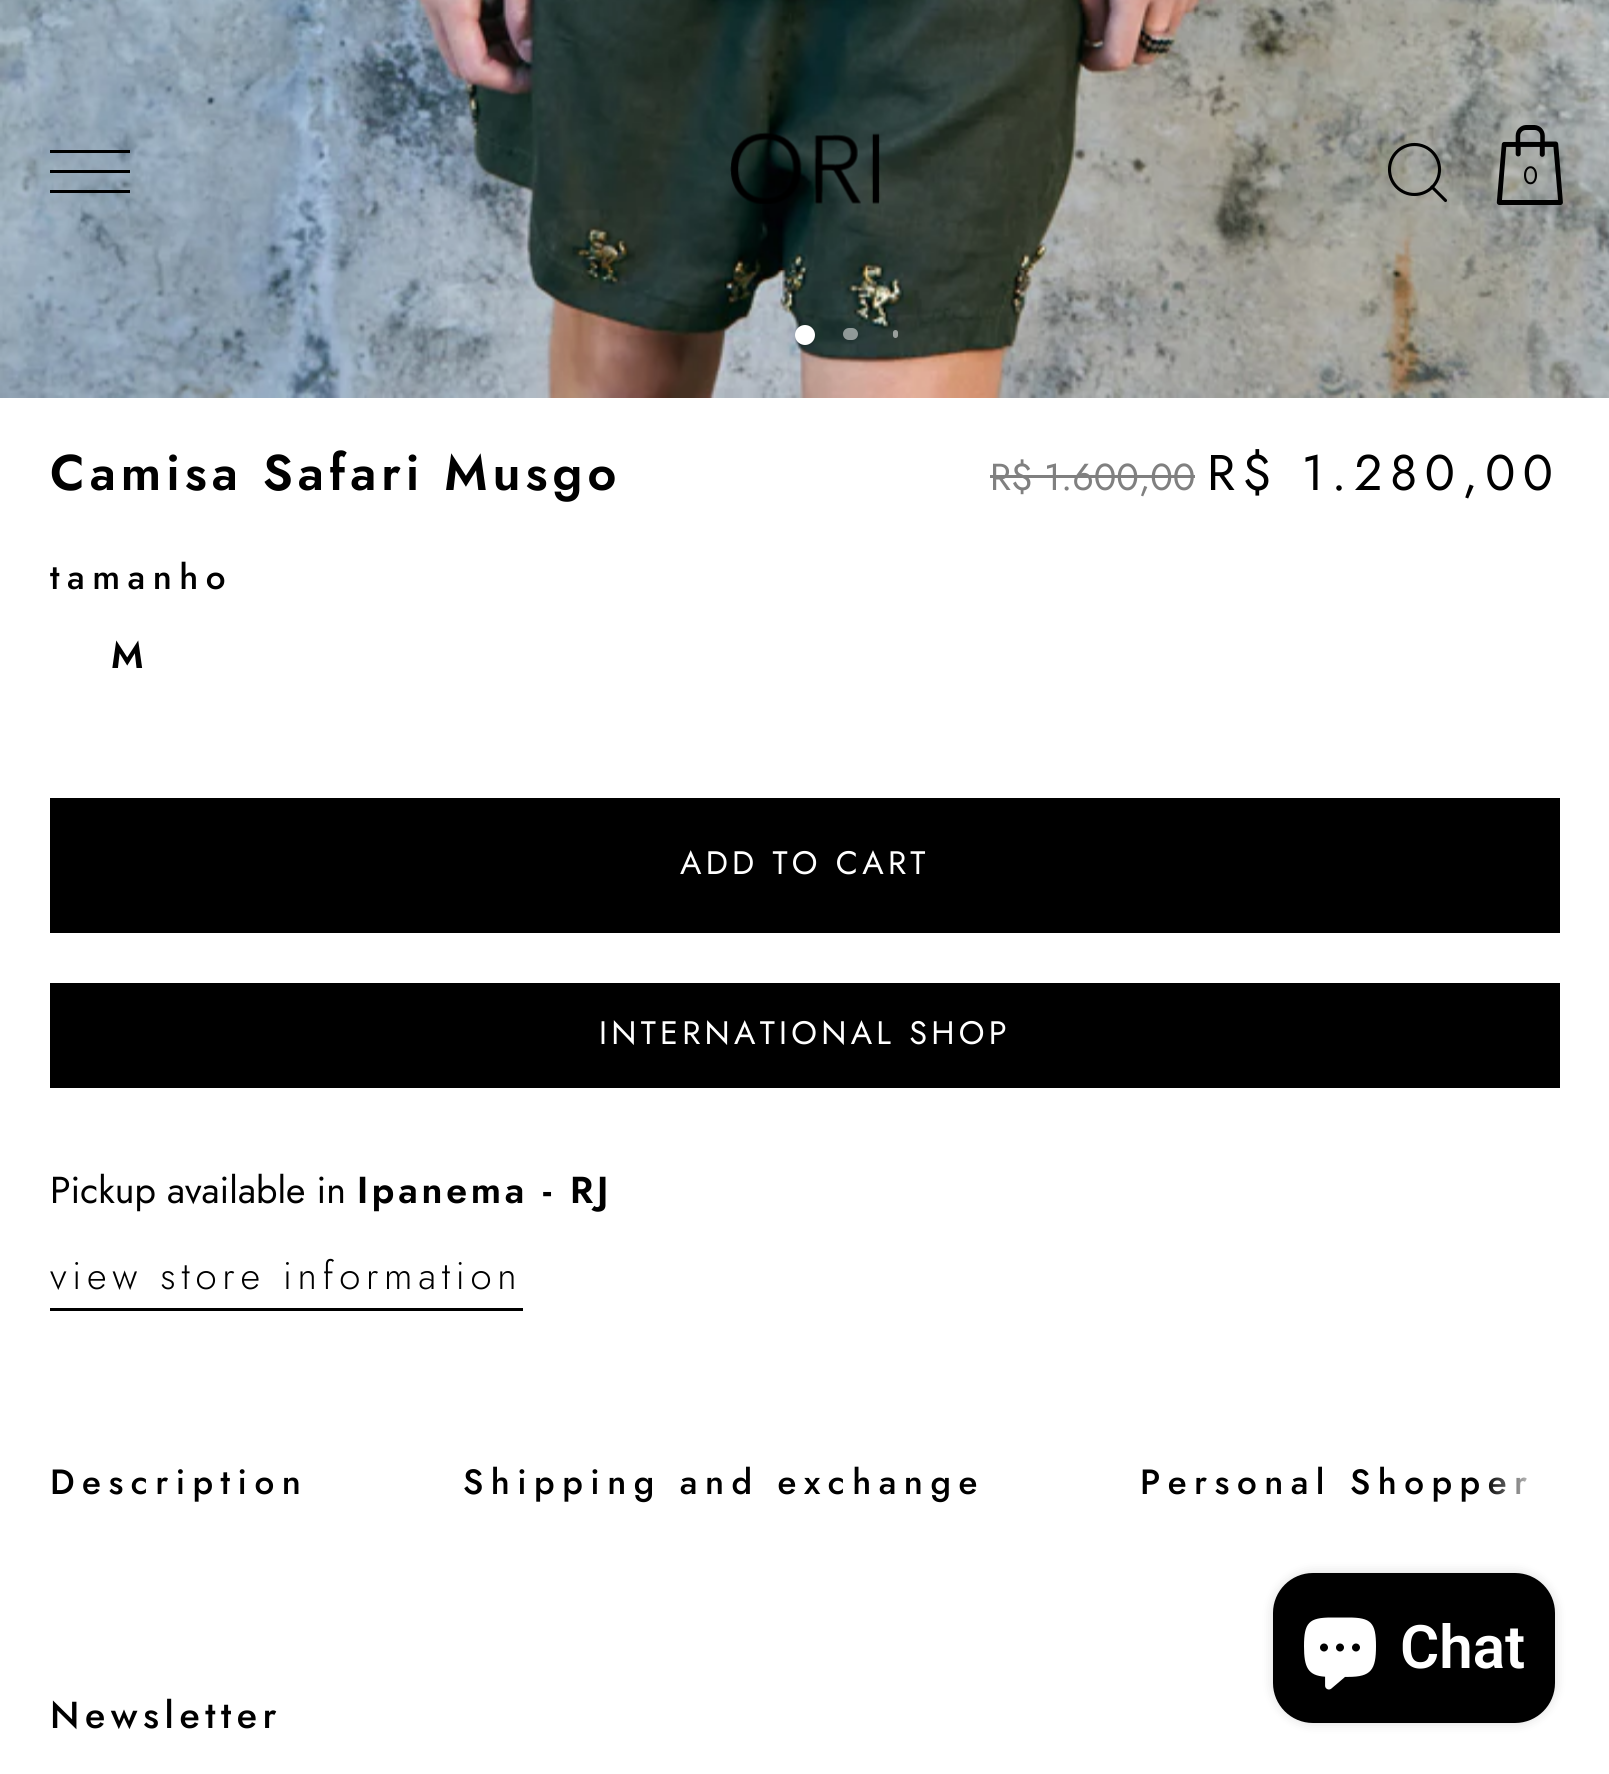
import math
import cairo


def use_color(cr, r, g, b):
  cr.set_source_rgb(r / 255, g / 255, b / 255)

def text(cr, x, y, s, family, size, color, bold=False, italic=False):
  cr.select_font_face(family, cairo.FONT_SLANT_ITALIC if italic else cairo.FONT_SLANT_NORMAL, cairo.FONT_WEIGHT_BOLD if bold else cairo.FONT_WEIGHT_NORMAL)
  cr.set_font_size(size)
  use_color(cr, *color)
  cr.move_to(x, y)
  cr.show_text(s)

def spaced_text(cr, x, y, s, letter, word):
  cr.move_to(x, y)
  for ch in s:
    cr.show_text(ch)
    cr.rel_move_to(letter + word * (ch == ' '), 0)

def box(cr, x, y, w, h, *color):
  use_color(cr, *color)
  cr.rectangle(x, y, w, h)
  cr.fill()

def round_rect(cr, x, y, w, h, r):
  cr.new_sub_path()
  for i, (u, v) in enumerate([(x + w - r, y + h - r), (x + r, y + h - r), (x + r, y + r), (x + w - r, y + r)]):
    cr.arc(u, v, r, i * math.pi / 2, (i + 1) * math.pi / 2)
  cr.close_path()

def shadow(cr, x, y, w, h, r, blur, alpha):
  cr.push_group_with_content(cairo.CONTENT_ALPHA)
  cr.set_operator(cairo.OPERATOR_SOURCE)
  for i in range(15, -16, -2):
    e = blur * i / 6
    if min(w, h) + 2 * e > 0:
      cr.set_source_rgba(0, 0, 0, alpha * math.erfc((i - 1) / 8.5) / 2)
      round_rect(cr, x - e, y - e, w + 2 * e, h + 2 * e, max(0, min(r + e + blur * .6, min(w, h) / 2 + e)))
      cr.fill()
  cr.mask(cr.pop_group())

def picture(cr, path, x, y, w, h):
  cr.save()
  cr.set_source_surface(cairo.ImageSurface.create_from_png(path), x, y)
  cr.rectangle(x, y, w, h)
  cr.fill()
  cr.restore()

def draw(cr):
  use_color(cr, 255, 255, 255)
  cr.paint()
  picture(cr, "img_03.png", 0, 0, 1609, 398)
  box(cr, 50, 150, 80, 3, 0, 0, 0)
  box(cr, 50, 170, 80, 3, 0, 0, 0)
  box(cr, 50, 190, 80, 3, 0, 0, 0)
  picture(cr, "img_01.png", 730, 132, 150, 72)
  cr.arc(1414.5, 169.5, 25, 0, 2 * math.pi)
  cr.set_line_width(3.1)
  cr.stroke()
  cr.new_path()
  cr.move_to(1445.5, 200.5)
  cr.line_to(1432, 187)
  cr.set_line_cap(cairo.LINE_CAP_ROUND)
  cr.set_line_join(cairo.LINE_JOIN_ROUND)
  cr.stroke()
  picture(cr, "img_02.png", 1496, 125, 67, 80)
  use_color(cr, 0, 0, 0)
  shadow(cr, 795, 325, 20, 20, 10, 2.5, 0.2)
  use_color(cr, 255, 255, 255)
  cr.arc(805, 335, 10, 0, 2 * math.pi)
  cr.fill()
  cr.set_source_rgba(1, 1, 1, 0.5)
  round_rect(cr, 843, 328, 15, 12, 6)
  cr.fill()
  round_rect(cr, 893, 330, 5, 8, 2.5)
  cr.fill()
  box(cr, 990, 475, 205, 3, 128, 128, 128)
  box(cr, 50, 798, 1510, 135, 0, 0, 0)
  box(cr, 50, 983, 1510, 105, 0, 0, 0)
  box(cr, 50, 1308, 473, 3, 0, 0, 0)
  use_color(cr, 0, 0, 0)
  shadow(cr, 1273, 1573, 282, 150, 40, 6, 0.15)
  use_color(cr, 0, 0, 0)
  round_rect(cr, 1273, 1573, 282, 150, 40)
  cr.fill()
  picture(cr, "img_04.png", 1304, 1617, 72, 73)
  text(cr, 1523, 184, "0", "Jost", 25, (0, 0, 0))
  cr.select_font_face("Jost SemiBold")
  cr.set_font_size(50)
  spaced_text(cr, 50, 490, "Camisa Safari Musgo", 5, 0)
  text(cr, 990, 490, "R$ 1.600,00", "Jost", 37.5, (128, 128, 128))
  cr.set_font_size(50)
  use_color(cr, 0, 0, 0)
  spaced_text(cr, 1207, 490, "R$ 1.280,00", 7.5, 0)
  cr.select_font_face("Jost Medium")
  cr.set_font_size(35)
  spaced_text(cr, 50, 589, "tamanho", 7.5, 0)
  text(cr, 111, 668, "M", "Jost SemiBold", 37.5, (0, 0, 0))
  cr.select_font_face("Jost")
  cr.set_font_size(32.5)
  use_color(cr, 255, 255, 255)
  spaced_text(cr, 680, 874, "ADD TO CART", 4.25, 0)
  spaced_text(cr, 599, 1044, "INTERNATIONAL SHOP", 4.25, 0)
  text(cr, 50, 1203, "Pickup available in", "Jost", 37.5, (0, 0, 0))
  cr.select_font_face("Jost SemiBold")
  spaced_text(cr, 357, 1203, "Ipanema - RJ", 3.75, 0)
  cr.select_font_face("Jost Light")
  cr.set_font_size(38.25)
  spaced_text(cr, 50, 1289, "view store information", 5.75, 0)
  cr.select_font_face("Jost Medium")
  cr.set_font_size(35)
  spaced_text(cr, 50, 1494, "Description", 7.5, 0)
  spaced_text(cr, 463, 1494, "Shipping and exchange", 7.5, 0)
  spaced_text(cr, 1140, 1494, "Personal Shopper", 7.5, 0)
  gradient = cairo.LinearGradient(1485, 1484, 1560, 1484)
  gradient.add_color_stop_rgba(0, 1, 1, 1, 0)
  gradient.add_color_stop_rgba(0.8, 1, 1, 1, 1)
  cr.set_source(gradient)
  cr.rectangle(1489, 1477, 39, 18)
  cr.fill()
  text(cr, 1400, 1668, "Chat", "Roboto SemiBold", 60, (255, 255, 255))
  cr.select_font_face("Jost Medium")
  cr.set_font_size(37.5)
  use_color(cr, 0, 0, 0)
  spaced_text(cr, 50, 1728, "Newsletter", 5.6, 0)


surface = cairo.ImageSurface(cairo.FORMAT_RGB24, 1609, 1774)
cr = cairo.Context(surface)
options = cairo.FontOptions()
options.set_hint_metrics(cairo.HINT_METRICS_OFF)
options.set_hint_style(cairo.HINT_STYLE_NONE)
cr.set_font_options(options)
cr.set_miter_limit(4)
draw(cr)
surface.write_to_png("out.png")
